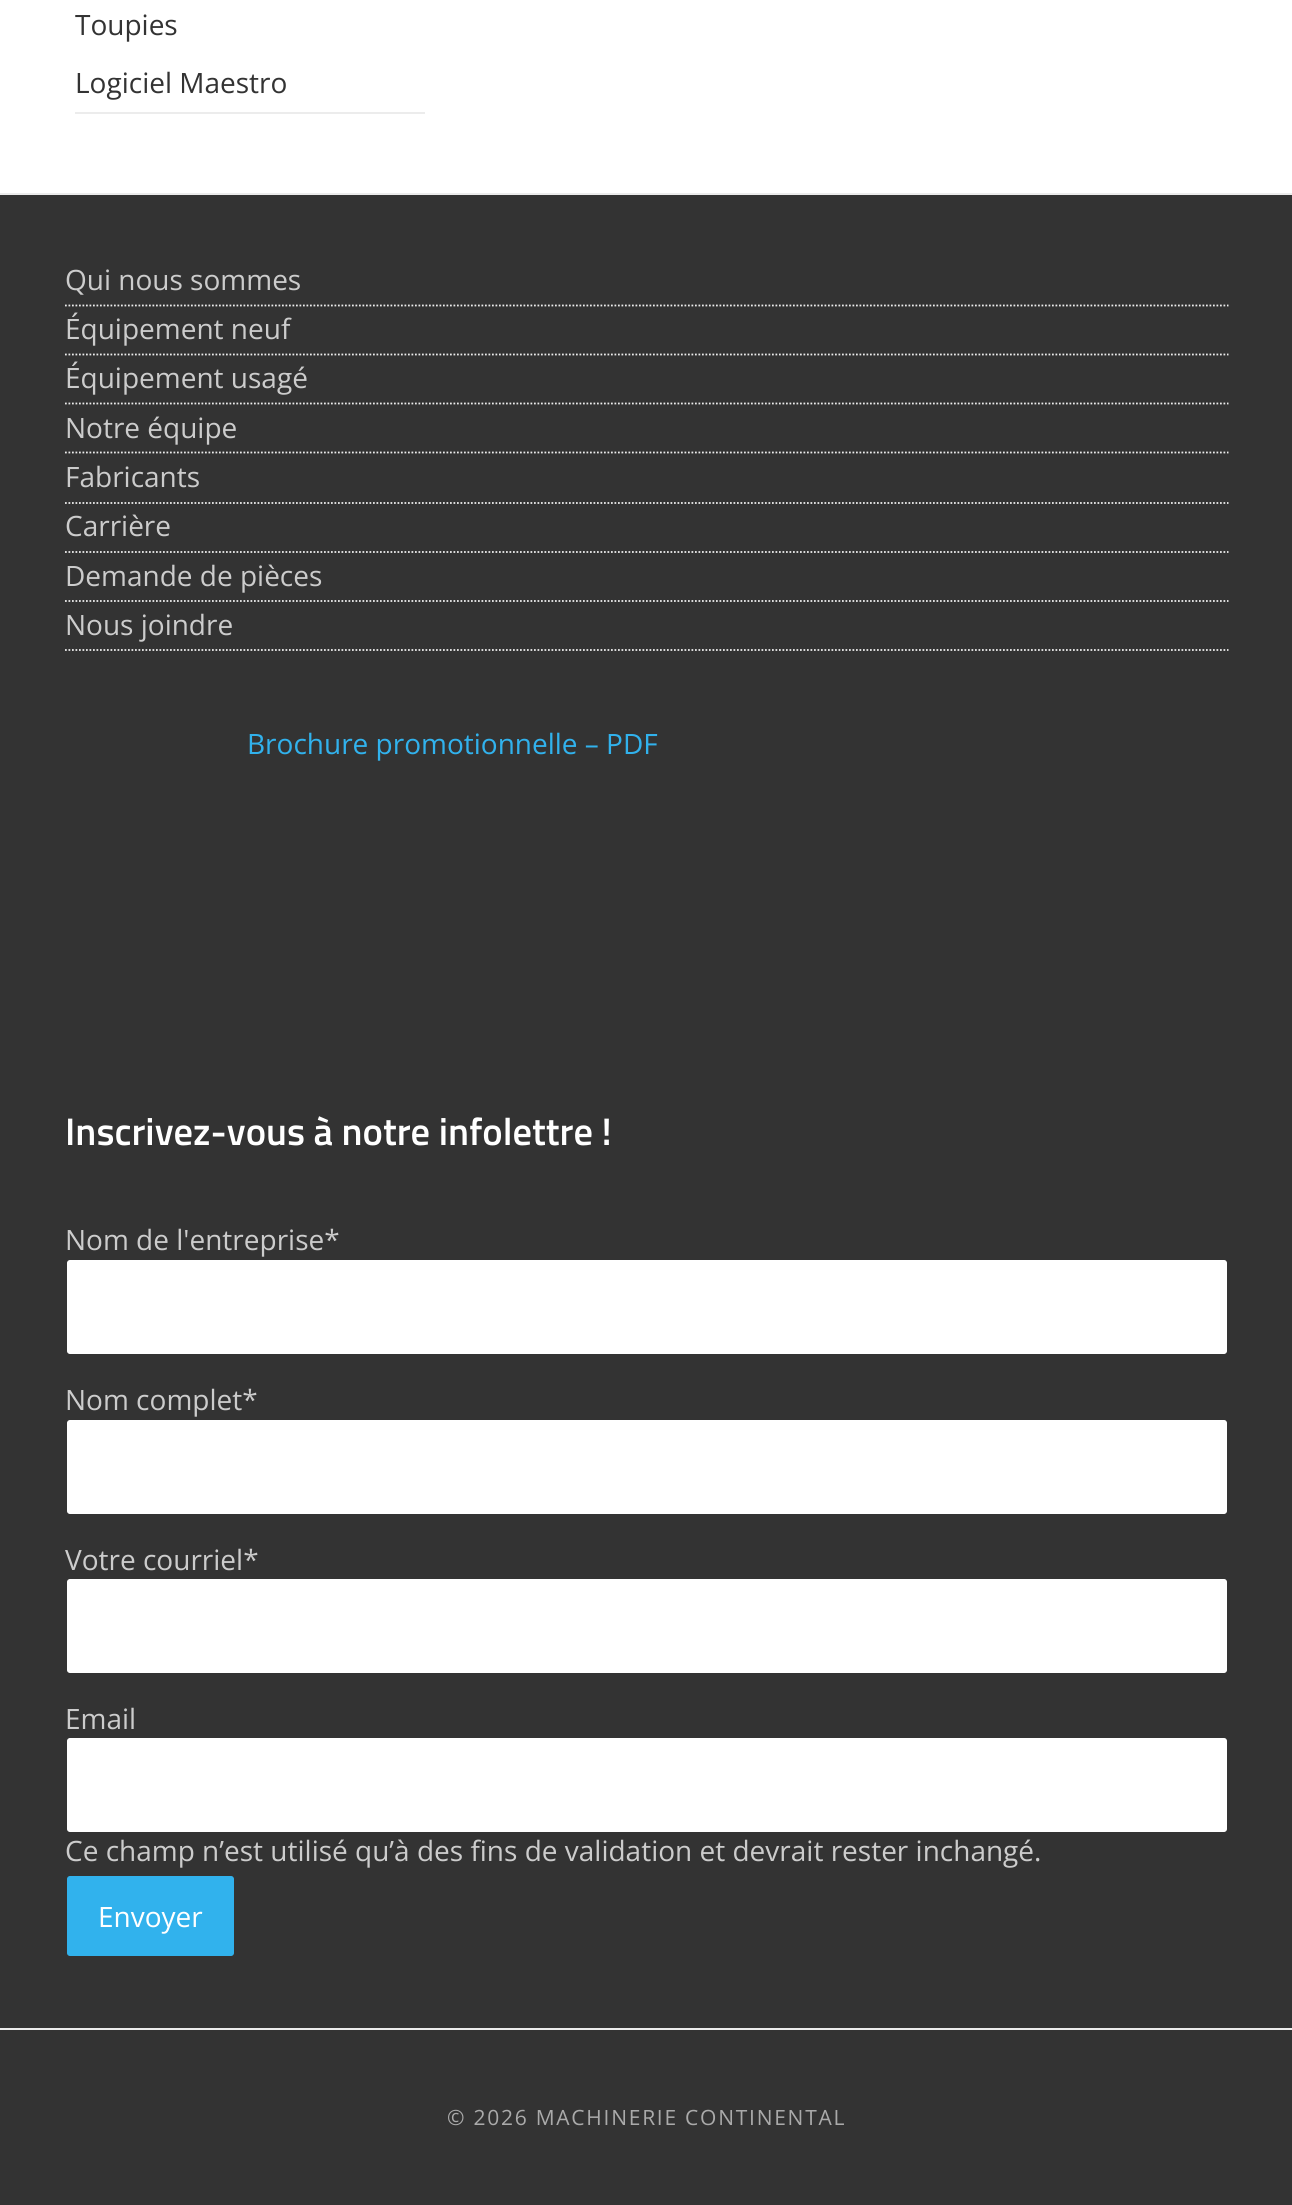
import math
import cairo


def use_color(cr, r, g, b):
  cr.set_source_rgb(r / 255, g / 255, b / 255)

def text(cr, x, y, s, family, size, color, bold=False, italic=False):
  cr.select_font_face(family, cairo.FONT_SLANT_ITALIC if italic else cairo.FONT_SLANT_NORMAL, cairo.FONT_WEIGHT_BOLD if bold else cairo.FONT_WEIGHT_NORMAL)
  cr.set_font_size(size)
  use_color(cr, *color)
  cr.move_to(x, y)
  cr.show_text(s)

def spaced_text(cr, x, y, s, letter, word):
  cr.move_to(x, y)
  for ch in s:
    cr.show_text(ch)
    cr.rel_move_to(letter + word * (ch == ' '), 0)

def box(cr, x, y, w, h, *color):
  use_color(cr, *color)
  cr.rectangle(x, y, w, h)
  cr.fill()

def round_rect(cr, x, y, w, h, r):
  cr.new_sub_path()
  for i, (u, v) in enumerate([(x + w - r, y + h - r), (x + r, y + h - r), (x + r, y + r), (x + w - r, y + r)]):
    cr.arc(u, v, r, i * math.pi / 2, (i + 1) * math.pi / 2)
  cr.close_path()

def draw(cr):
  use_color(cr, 255, 255, 255)
  cr.paint()
  use_color(cr, 236, 236, 236)
  cr.new_path()
  cr.move_to(75, -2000)
  cr.line_to(75, 114)
  cr.line_to(425, 114)
  cr.line_to(425, 112)
  cr.line_to(75, 112)
  cr.close_path()
  cr.fill()
  box(cr, 0, 195, 1292, 1833, 51, 51, 51)
  box(cr, 0, 193, 1292, 2, 236, 236, 236)
  cr.new_path()
  cr.move_to(65, 305.5)
  cr.line_to(1228.5, 305.5)
  cr.set_line_width(1.8)
  cr.set_dash([1.75, 1.75])
  cr.stroke()
  cr.new_path()
  cr.move_to(65, 354.5)
  cr.line_to(1228.5, 354.5)
  cr.stroke()
  cr.new_path()
  cr.move_to(65, 403.5)
  cr.line_to(1228.5, 403.5)
  cr.stroke()
  cr.new_path()
  cr.move_to(65, 452.5)
  cr.line_to(1228.5, 452.5)
  cr.stroke()
  cr.new_path()
  cr.move_to(65, 503)
  cr.line_to(1228.5, 503)
  cr.stroke()
  cr.new_path()
  cr.move_to(65, 552)
  cr.line_to(1228.5, 552)
  cr.stroke()
  cr.new_path()
  cr.move_to(65, 601)
  cr.line_to(1228.5, 601)
  cr.stroke()
  cr.new_path()
  cr.move_to(65, 650)
  cr.line_to(1228.5, 650)
  cr.stroke()
  use_color(cr, 255, 255, 255)
  round_rect(cr, 66, 1259, 1162, 96, 4)
  cr.fill_preserve()
  use_color(cr, 51, 51, 51)
  cr.set_line_width(2)
  cr.set_dash([])
  cr.stroke()
  use_color(cr, 255, 255, 255)
  round_rect(cr, 66, 1419, 1162, 96, 4)
  cr.fill_preserve()
  use_color(cr, 51, 51, 51)
  cr.stroke()
  use_color(cr, 255, 255, 255)
  round_rect(cr, 66, 1578, 1162, 96, 4)
  cr.fill_preserve()
  use_color(cr, 51, 51, 51)
  cr.stroke()
  use_color(cr, 255, 255, 255)
  round_rect(cr, 66, 1737, 1162, 96, 4)
  cr.fill_preserve()
  use_color(cr, 51, 51, 51)
  cr.stroke()
  use_color(cr, 49, 178, 237)
  round_rect(cr, 66, 1875, 169, 82, 4)
  cr.fill_preserve()
  use_color(cr, 51, 51, 51)
  cr.stroke()
  box(cr, 0, 2030, 1292, 175, 51, 51, 51)
  box(cr, 0, 2028, 1292, 2, 236, 236, 236)
  text(cr, 75, 35, "Toupies", "Open Sans", 28, (51, 51, 51))
  text(cr, 75, 93, "Logiciel Maestro", "Open Sans", 28, (51, 51, 51))
  text(cr, 65, 290, "Qui nous sommes", "Open Sans", 28, (204, 204, 204))
  text(cr, 65, 339, "Équipement neuf", "Open Sans", 28, (204, 204, 204))
  text(cr, 65, 388, "Équipement usagé", "Open Sans", 28, (204, 204, 204))
  text(cr, 65, 438, "Notre équipe", "Open Sans", 28, (204, 204, 204))
  text(cr, 65, 487, "Fabricants", "Open Sans", 28, (204, 204, 204))
  text(cr, 65, 536, "Carrière", "Open Sans", 28, (204, 204, 204))
  text(cr, 65, 586, "Demande de pièces", "Open Sans", 28, (204, 204, 204))
  text(cr, 65, 635, "Nous joindre", "Open Sans", 28, (204, 204, 204))
  text(cr, 247, 754, "Brochure promotionnelle – PDF", "Open Sans", 28, (49, 178, 237))
  text(cr, 65, 1145, "Inscrivez-vous à notre infolettre !", "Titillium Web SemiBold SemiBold", 38.5, (255, 255, 255))
  text(cr, 65, 1250, "Nom de l'entreprise*", "Open Sans", 28, (204, 204, 204))
  text(cr, 65, 1410, "Nom complet*", "Open Sans", 28, (204, 204, 204))
  text(cr, 65, 1570, "Votre courriel*", "Open Sans", 28, (204, 204, 204))
  text(cr, 65, 1729, "Email", "Open Sans", 28, (204, 204, 204))
  text(cr, 65, 1861, "Ce champ n’est utilisé qu’à des fins de validation et devrait rester inchangé.", "Open Sans", 28, (204, 204, 204))
  text(cr, 98, 1927, "Envoyer", "Open Sans", 28, (255, 255, 255))
  cr.set_font_size(21)
  use_color(cr, 170, 170, 170)
  spaced_text(cr, 447, 2125, "© 2026 MACHINERIE CONTINENTAL", 1.75, 0)


surface = cairo.ImageSurface(cairo.FORMAT_RGB24, 1292, 2205)
cr = cairo.Context(surface)
options = cairo.FontOptions()
options.set_hint_metrics(cairo.HINT_METRICS_OFF)
options.set_hint_style(cairo.HINT_STYLE_NONE)
cr.set_font_options(options)
cr.set_miter_limit(4)
draw(cr)
surface.write_to_png("out.png")
